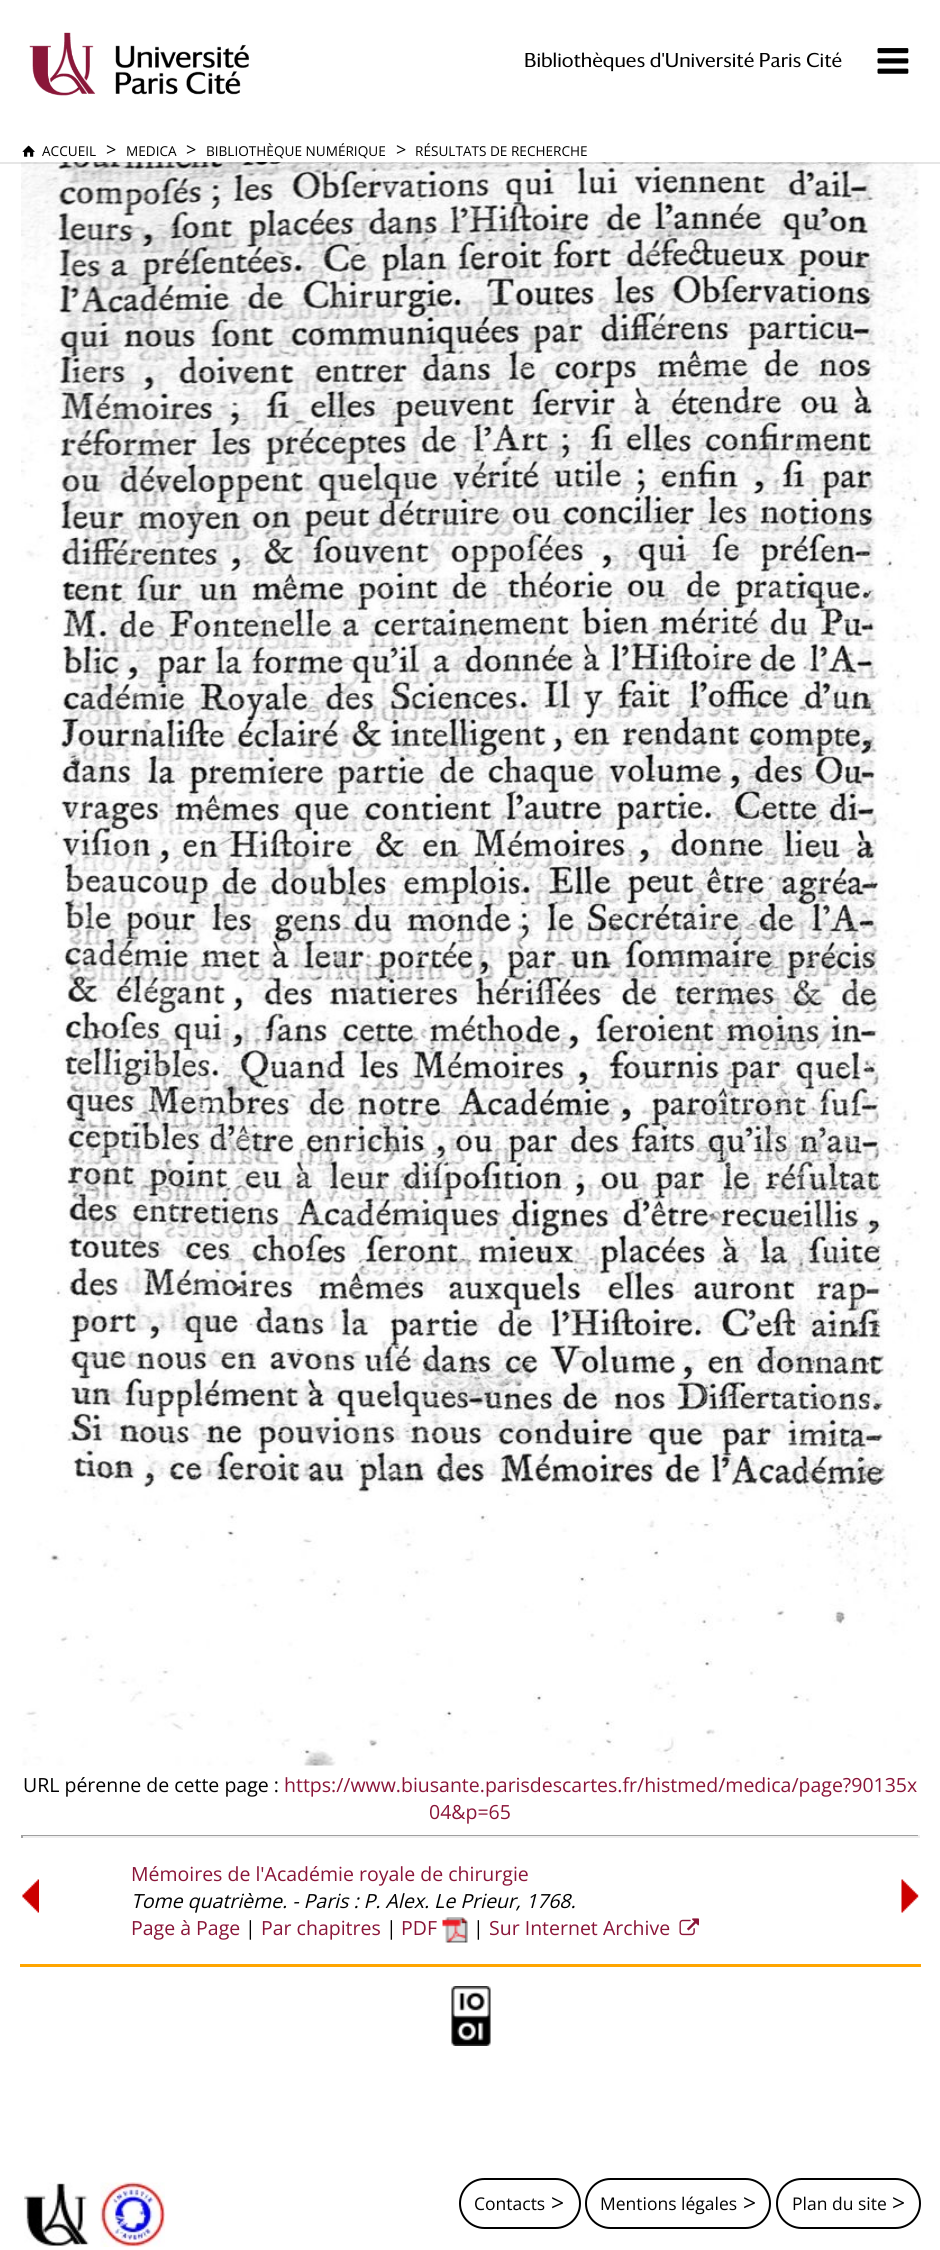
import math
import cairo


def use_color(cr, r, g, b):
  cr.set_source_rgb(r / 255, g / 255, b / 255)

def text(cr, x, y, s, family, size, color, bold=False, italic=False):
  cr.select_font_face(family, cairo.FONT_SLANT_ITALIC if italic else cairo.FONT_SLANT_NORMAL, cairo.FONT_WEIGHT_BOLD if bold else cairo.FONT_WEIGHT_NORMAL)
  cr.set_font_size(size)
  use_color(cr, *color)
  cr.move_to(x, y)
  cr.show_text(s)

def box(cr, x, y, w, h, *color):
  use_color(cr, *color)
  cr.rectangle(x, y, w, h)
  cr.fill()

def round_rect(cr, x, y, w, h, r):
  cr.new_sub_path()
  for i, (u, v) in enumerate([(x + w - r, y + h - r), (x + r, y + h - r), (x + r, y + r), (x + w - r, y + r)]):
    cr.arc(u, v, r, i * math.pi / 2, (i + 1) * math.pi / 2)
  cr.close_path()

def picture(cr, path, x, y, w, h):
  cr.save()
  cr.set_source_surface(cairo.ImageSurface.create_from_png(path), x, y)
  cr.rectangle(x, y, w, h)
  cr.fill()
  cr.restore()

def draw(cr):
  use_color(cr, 255, 255, 255)
  cr.paint()
  picture(cr, "img_04.png", 21, 162, 899, 1604)
  cr.set_source_rgba(0, 0, 0, 0.1)
  cr.new_path()
  cr.move_to(0, 162)
  cr.line_to(0, 164)
  cr.line_to(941, 164)
  cr.line_to(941, 2)
  cr.line_to(940, 2)
  cr.line_to(940, 162)
  cr.close_path()
  cr.fill()
  picture(cr, "img_01.png", 29, 32, 220, 64)
  picture(cr, "img_02.png", 877, 48, 32, 26)
  picture(cr, "img_03.png", 22, 145, 13, 12)
  box(cr, 21, 1835, 899, 1, 159, 159, 159)
  box(cr, 918, 1835, 2, 3, 238, 238, 238)
  box(cr, 21, 1836, 899, 2, 238, 238, 238)
  box(cr, 21, 1835, 2, 3, 159, 159, 159)
  picture(cr, "img_05.png", 22, 1879, 17, 34)
  picture(cr, "img_06.png", 442, 1917, 26, 26)
  picture(cr, "img_07.png", 679, 1918, 20, 18)
  picture(cr, "img_08.png", 901, 1879, 18, 34)
  box(cr, 20, 1964, 901, 3, 255, 165, 0)
  picture(cr, "img_09.png", 451, 1986, 40, 60)
  picture(cr, "img_10.png", 24, 2182, 65, 65)
  picture(cr, "img_11.png", 100, 2182, 65, 65)
  round_rect(cr, 460, 2179, 120, 49, 24.5)
  use_color(cr, 0, 0, 0)
  cr.stroke()
  round_rect(cr, 586, 2179, 184, 49, 24.5)
  cr.stroke()
  round_rect(cr, 777, 2179, 143, 49, 24.5)
  cr.stroke()
  text(cr, 524, 67, "Bibliothèques d'Université Paris Cité", "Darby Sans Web", 19.5, (0, 0, 0))
  text(cr, 42, 156, "ACCUEIL", "Open Sans", 13.6, (0, 0, 0))
  text(cr, 106, 156, ">", "Open Sans", 18, (0, 0, 0))
  text(cr, 126, 156, "MEDICA", "Open Sans", 13.6, (0, 0, 0))
  text(cr, 186, 156, ">", "Open Sans", 18, (0, 0, 0))
  text(cr, 206, 156, "BIBLIOTHÈQUE NUMÉRIQUE", "Open Sans", 13.6, (0, 0, 0))
  text(cr, 396, 156, ">", "Open Sans", 18, (0, 0, 0))
  text(cr, 415, 156, "RÉSULTATS DE RECHERCHE", "Open Sans", 13.6, (0, 0, 0))
  text(cr, 23, 1792, "URL pérenne de cette page :", "Open Sans", 19.5, (0, 0, 0))
  text(cr, 284, 1792, "https://www.biusante.parisdescartes.fr/histmed/medica/page?90135x", "Open Sans", 19.5, (138, 21, 56))
  text(cr, 429, 1819, "04&p=65", "Open Sans", 19.5, (138, 21, 56))
  text(cr, 131, 1881, "Mémoires de l'Académie royale de chirurgie", "Open Sans", 19.5, (138, 21, 56))
  text(cr, 131, 1908, "Tome quatrième. - Paris : P. Alex. Le Prieur, 1768.", "Open Sans", 19.5, (0, 0, 0), italic=True)
  text(cr, 131, 1935, "Page à Page", "Open Sans", 19.5, (138, 21, 56))
  text(cr, 245, 1935, "|", "Open Sans", 19.5, (0, 0, 0))
  text(cr, 261, 1935, "Par chapitres", "Open Sans", 19.5, (138, 21, 56))
  text(cr, 386, 1935, "|", "Open Sans", 19.5, (0, 0, 0))
  text(cr, 401, 1935, "PDF", "Open Sans", 19.5, (138, 21, 56))
  text(cr, 473, 1935, "|", "Open Sans", 19.5, (0, 0, 0))
  text(cr, 489, 1935, "Sur Internet Archive", "Open Sans", 19.5, (138, 21, 56))
  text(cr, 474, 2210, "Contacts", "Open Sans", 17.5, (0, 0, 0))
  text(cr, 551, 2211, ">", "Open Sans", 23, (0, 0, 0))
  text(cr, 600, 2210, "Mentions légales", "Open Sans", 17.5, (0, 0, 0))
  text(cr, 743, 2211, ">", "Open Sans", 23, (0, 0, 0))
  text(cr, 792, 2210, "Plan du site", "Open Sans", 17.5, (0, 0, 0))
  text(cr, 892, 2211, ">", "Open Sans", 23, (0, 0, 0))


surface = cairo.ImageSurface(cairo.FORMAT_RGB24, 940, 2250)
cr = cairo.Context(surface)
options = cairo.FontOptions()
options.set_hint_metrics(cairo.HINT_METRICS_OFF)
options.set_hint_style(cairo.HINT_STYLE_NONE)
cr.set_font_options(options)
cr.set_miter_limit(4)
draw(cr)
surface.write_to_png("out.png")
